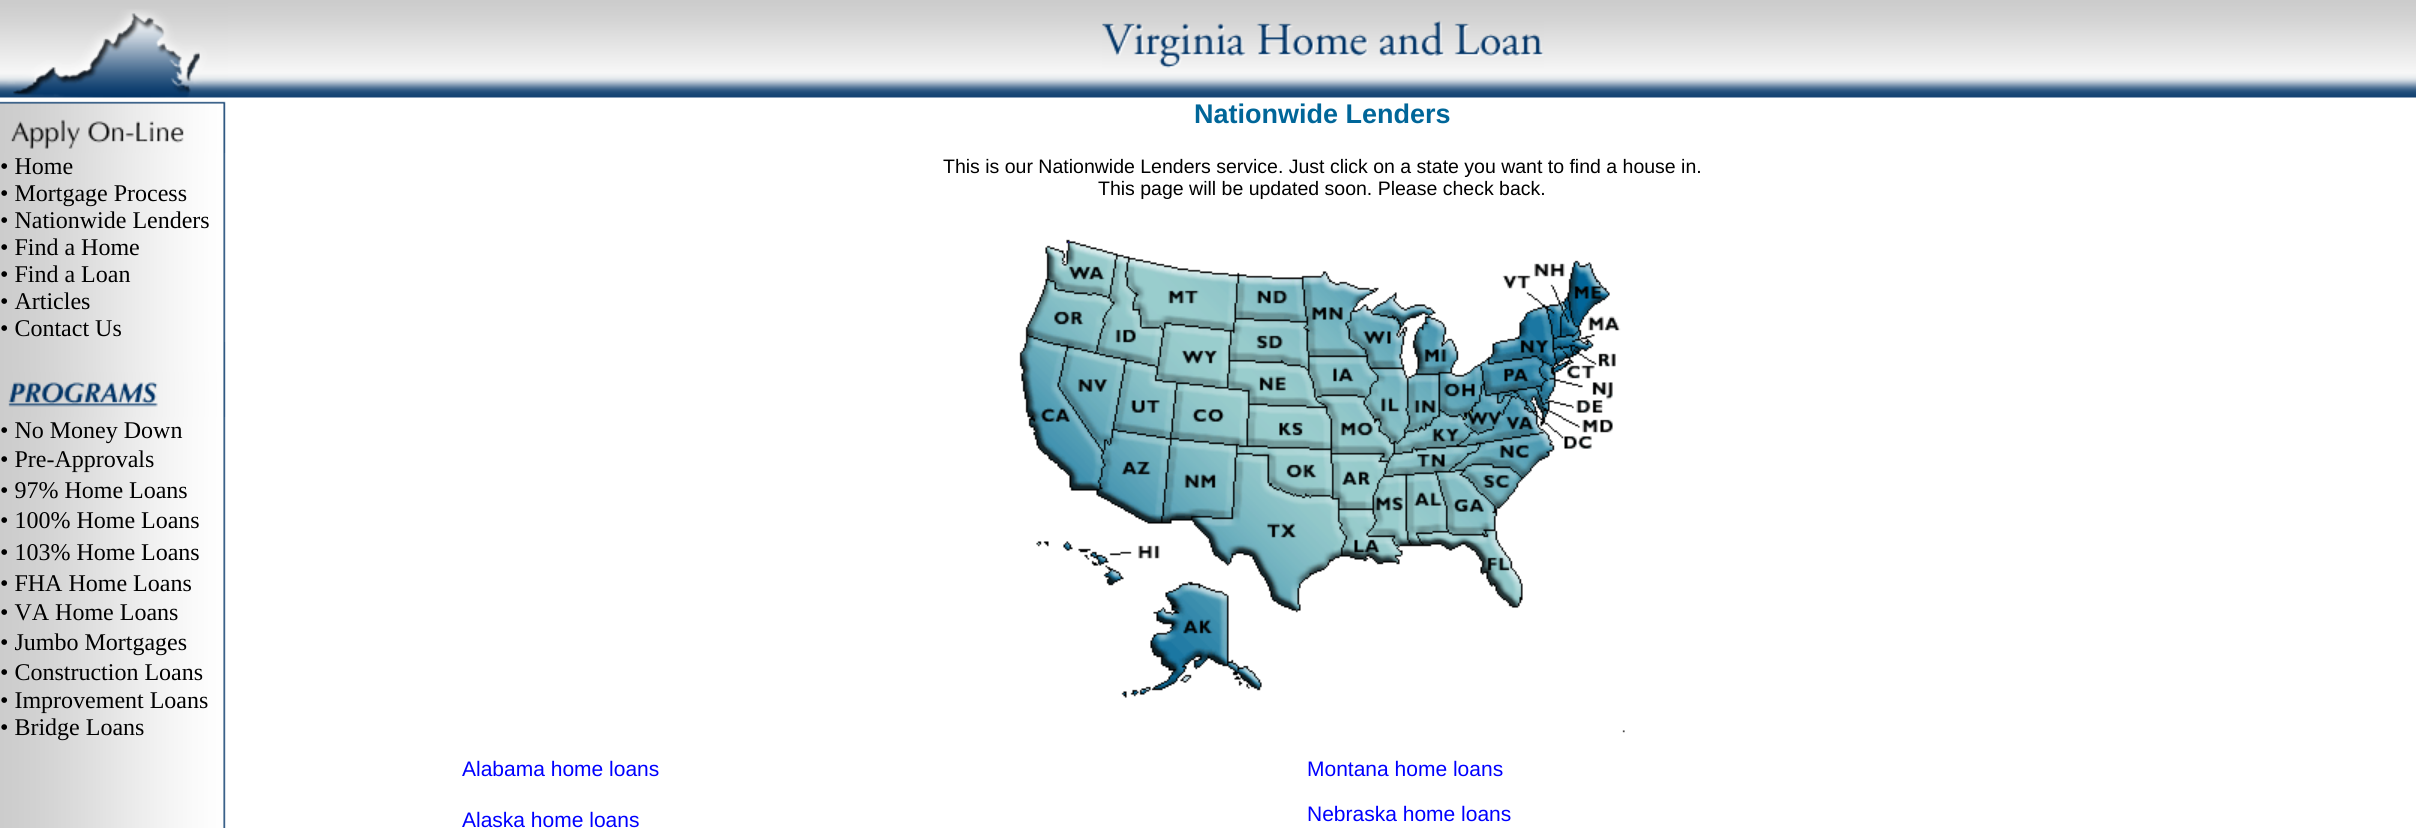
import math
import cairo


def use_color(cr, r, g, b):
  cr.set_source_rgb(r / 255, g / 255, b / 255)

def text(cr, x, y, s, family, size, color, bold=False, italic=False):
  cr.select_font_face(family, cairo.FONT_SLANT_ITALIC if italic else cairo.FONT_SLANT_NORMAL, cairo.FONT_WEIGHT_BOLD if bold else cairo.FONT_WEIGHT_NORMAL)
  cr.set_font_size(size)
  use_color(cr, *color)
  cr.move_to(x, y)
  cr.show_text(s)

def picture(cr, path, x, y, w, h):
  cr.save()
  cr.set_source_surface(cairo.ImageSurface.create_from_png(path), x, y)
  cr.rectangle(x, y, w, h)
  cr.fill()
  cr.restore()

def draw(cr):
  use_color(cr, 255, 255, 255)
  cr.paint()
  picture(cr, "img_01.png", 0, 0, 228, 98)
  picture(cr, "img_02.png", 228, 0, 2188, 98)
  picture(cr, "img_03.png", 1102, 20, 442, 48)
  picture(cr, "img_04.png", 0, 153, 226, 675)
  picture(cr, "img_05.png", 0, 99, 226, 54)
  picture(cr, "img_06.png", 224, 342, 2, 30)
  picture(cr, "img_07.png", 8, 372, 218, 45)
  picture(cr, "img_08.png", 1019, 239, 606, 494)
  text(cr, 0, 174, "• Home", "Liberation Serif", 24, (0, 0, 0))
  text(cr, 0, 201, "• Mortgage Process", "Liberation Serif", 24, (0, 0, 0))
  text(cr, 0, 228, "• Nationwide Lenders", "Liberation Serif", 24, (0, 0, 0))
  text(cr, 0, 255, "• Find a Home", "Liberation Serif", 24, (0, 0, 0))
  text(cr, 0, 282, "• Find a Loan", "Liberation Serif", 24, (0, 0, 0))
  text(cr, 0, 309, "• Articles", "Liberation Serif", 24, (0, 0, 0))
  text(cr, 0, 336, "• Contact Us", "Liberation Serif", 24, (0, 0, 0))
  text(cr, 0, 438, "• No Money Down", "Liberation Serif", 24, (0, 0, 0))
  text(cr, 0, 467, "• Pre-Approvals", "Liberation Serif", 24, (0, 0, 0))
  text(cr, 0, 498, "• 97% Home Loans", "Liberation Serif", 24, (0, 0, 0))
  text(cr, 0, 528, "• 100% Home Loans", "Liberation Serif", 24, (0, 0, 0))
  text(cr, 0, 560, "• 103% Home Loans", "Liberation Serif", 24, (0, 0, 0))
  text(cr, 0, 591, "• FHA Home Loans", "Liberation Serif", 24, (0, 0, 0))
  text(cr, 0, 620, "• VA Home Loans", "Liberation Serif", 24, (0, 0, 0))
  text(cr, 0, 650, "• Jumbo Mortgages", "Liberation Serif", 24, (0, 0, 0))
  text(cr, 0, 680, "• Construction Loans", "Liberation Serif", 24, (0, 0, 0))
  text(cr, 0, 708, "• Improvement Loans", "Liberation Serif", 24, (0, 0, 0))
  text(cr, 0, 735, "• Bridge Loans", "Liberation Serif", 24, (0, 0, 0))
  text(cr, 1194, 123, "Nationwide Lenders", "Liberation Sans", 27, (0, 102, 153), bold=True)
  text(cr, 943, 173, "This is our Nationwide Lenders service. Just click on a state you want to find a house in.", "Liberation Sans", 19.5, (0, 0, 0))
  text(cr, 1098, 195, "This page will be updated soon. Please check back.", "Liberation Sans", 19.5, (0, 0, 0))
  text(cr, 462, 776, "Alabama home loans", "Liberation Sans", 21, (0, 0, 255))
  text(cr, 462, 827, "Alaska home loans", "Liberation Sans", 21, (0, 0, 255))
  text(cr, 1307, 776, "Montana home loans", "Liberation Sans", 21, (0, 0, 255))
  text(cr, 1307, 821, "Nebraska home loans", "Liberation Sans", 21, (0, 0, 255))


surface = cairo.ImageSurface(cairo.FORMAT_RGB24, 2416, 828)
cr = cairo.Context(surface)
options = cairo.FontOptions()
options.set_hint_metrics(cairo.HINT_METRICS_OFF)
options.set_hint_style(cairo.HINT_STYLE_NONE)
cr.set_font_options(options)
cr.set_miter_limit(4)
draw(cr)
surface.write_to_png("out.png")
